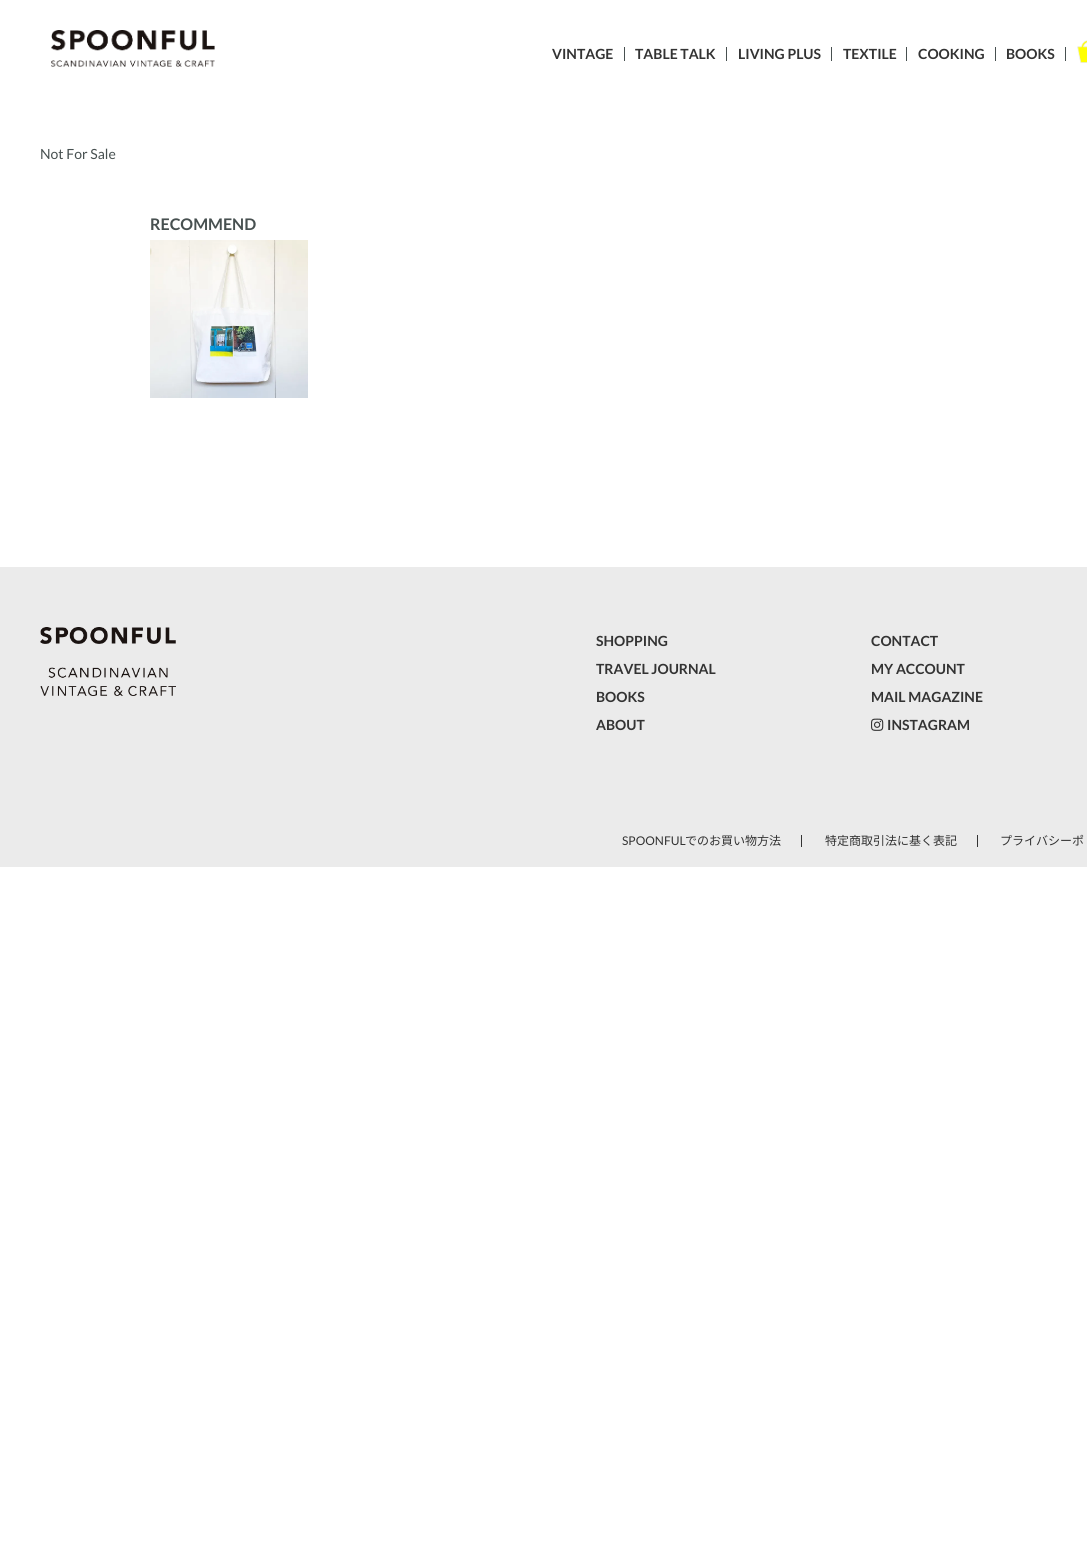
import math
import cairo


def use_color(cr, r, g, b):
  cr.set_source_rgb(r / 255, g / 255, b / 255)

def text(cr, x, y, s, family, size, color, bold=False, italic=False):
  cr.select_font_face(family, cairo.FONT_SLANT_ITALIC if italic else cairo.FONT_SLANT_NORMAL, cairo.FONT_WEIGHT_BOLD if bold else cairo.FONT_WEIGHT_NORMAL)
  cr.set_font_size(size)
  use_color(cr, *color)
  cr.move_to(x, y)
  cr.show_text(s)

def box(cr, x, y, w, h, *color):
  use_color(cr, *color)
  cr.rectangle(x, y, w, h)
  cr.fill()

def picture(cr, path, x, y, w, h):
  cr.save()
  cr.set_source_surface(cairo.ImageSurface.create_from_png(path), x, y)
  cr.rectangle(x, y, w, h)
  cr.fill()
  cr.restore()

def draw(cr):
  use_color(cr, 255, 255, 255)
  cr.paint()
  picture(cr, "img_01.png", 51, 30, 164, 37)
  box(cr, 624, 47, 1, 14, 71, 80, 80)
  box(cr, 726, 47, 1, 14, 71, 80, 80)
  box(cr, 831, 47, 1, 14, 71, 80, 80)
  box(cr, 906, 47, 1, 14, 71, 80, 80)
  box(cr, 995, 47, 1, 14, 71, 80, 80)
  box(cr, 1065, 47, 1, 14, 71, 80, 80)
  picture(cr, "img_02.png", 1077, 40, 10, 23)
  picture(cr, "img_03.png", 150, 240, 158, 158)
  box(cr, 0, 567, 1087, 300, 235, 235, 235)
  picture(cr, "img_04.png", 40, 627, 136, 69)
  picture(cr, "img_05.png", 871, 718, 13, 13)
  box(cr, 801, 835, 1, 12, 51, 51, 51)
  box(cr, 977, 835, 1, 12, 51, 51, 51)
  text(cr, 552, 59, "VINTAGE", "Lato", 14, (51, 51, 51), bold=True)
  text(cr, 635, 59, "TABLE TALK", "Lato", 14, (51, 51, 51), bold=True)
  text(cr, 738, 59, "LIVING PLUS", "Lato", 14, (51, 51, 51), bold=True)
  text(cr, 843, 59, "TEXTILE", "Lato", 14, (51, 51, 51), bold=True)
  text(cr, 918, 59, "COOKING", "Lato", 14, (51, 51, 51), bold=True)
  text(cr, 1006, 59, "BOOKS", "Lato", 14, (51, 51, 51), bold=True)
  text(cr, 40, 159, "Not For Sale", "Lato", 14, (71, 80, 80))
  text(cr, 150, 230, "RECOMMEND", "Lato", 16, (71, 80, 80), bold=True)
  text(cr, 596, 646, "SHOPPING", "Lato", 14, (51, 51, 51), bold=True)
  text(cr, 596, 674, "TRAVEL JOURNAL", "Lato", 14, (51, 51, 51), bold=True)
  text(cr, 596, 702, "BOOKS", "Lato", 14, (51, 51, 51), bold=True)
  text(cr, 596, 730, "ABOUT", "Lato", 14, (51, 51, 51), bold=True)
  text(cr, 871, 646, "CONTACT", "Lato", 14, (51, 51, 51), bold=True)
  text(cr, 871, 674, "MY ACCOUNT", "Lato", 14, (51, 51, 51), bold=True)
  text(cr, 871, 702, "MAIL MAGAZINE", "Lato", 14, (51, 51, 51), bold=True)
  text(cr, 887, 730, "INSTAGRAM", "Lato", 14, (51, 51, 51), bold=True)
  text(cr, 622, 845, "SPOONFUL", "Lato", 12, (51, 51, 51))
  text(cr, 685, 845, "でのお買い物方法", "Noto Sans JP", 12, (51, 51, 51))
  text(cr, 825, 845, "特定商取引法に基く表記", "Noto Sans JP", 12, (51, 51, 51))
  text(cr, 1000, 845, "プライバシーポ", "Noto Sans JP", 12, (51, 51, 51))


surface = cairo.ImageSurface(cairo.FORMAT_RGB24, 1087, 1565)
cr = cairo.Context(surface)
options = cairo.FontOptions()
options.set_hint_metrics(cairo.HINT_METRICS_OFF)
options.set_hint_style(cairo.HINT_STYLE_NONE)
cr.set_font_options(options)
cr.set_miter_limit(4)
draw(cr)
surface.write_to_png("out.png")
